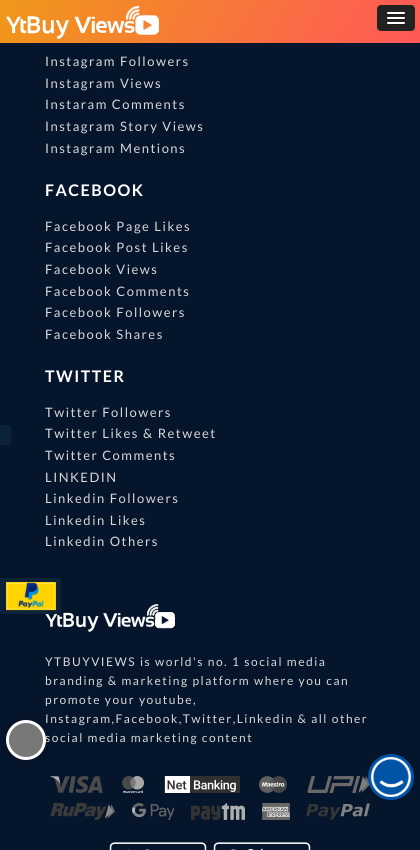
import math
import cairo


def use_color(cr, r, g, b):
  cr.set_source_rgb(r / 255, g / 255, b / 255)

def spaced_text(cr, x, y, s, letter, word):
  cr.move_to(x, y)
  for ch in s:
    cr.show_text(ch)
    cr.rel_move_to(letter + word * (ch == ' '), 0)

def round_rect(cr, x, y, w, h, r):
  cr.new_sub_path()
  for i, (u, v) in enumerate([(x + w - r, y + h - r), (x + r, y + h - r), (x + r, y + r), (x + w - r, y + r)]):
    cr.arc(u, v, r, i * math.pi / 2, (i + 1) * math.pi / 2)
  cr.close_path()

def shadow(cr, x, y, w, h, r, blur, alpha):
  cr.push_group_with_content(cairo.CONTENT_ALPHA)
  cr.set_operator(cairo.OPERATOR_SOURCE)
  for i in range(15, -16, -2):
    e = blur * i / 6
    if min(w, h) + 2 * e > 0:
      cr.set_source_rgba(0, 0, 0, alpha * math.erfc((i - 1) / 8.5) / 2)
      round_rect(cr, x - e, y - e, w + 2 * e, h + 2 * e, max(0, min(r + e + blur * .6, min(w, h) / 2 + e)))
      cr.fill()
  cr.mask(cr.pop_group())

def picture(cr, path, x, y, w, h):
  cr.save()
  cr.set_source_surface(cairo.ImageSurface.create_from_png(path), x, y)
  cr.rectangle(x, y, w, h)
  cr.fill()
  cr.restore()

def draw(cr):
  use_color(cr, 5, 21, 44)
  cr.paint()
  gradient = cairo.LinearGradient(377, 118, 43, -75)
  gradient.add_color_stop_rgba(0, 1, 0.345, 0.345, 1)
  gradient.add_color_stop_rgba(1, 0.941, 0.596, 0.098, 1)
  cr.set_source(gradient)
  cr.rectangle(0, 0, 420, 43)
  cr.fill()
  picture(cr, "img_01.png", 6, 6, 153, 33)
  use_color(cr, 34, 34, 34)
  round_rect(cr, 377, 5, 38, 26, 4)
  cr.fill()
  use_color(cr, 26, 26, 26)
  cr.new_path()
  cr.move_to(387, 13.5)
  cr.curve_to(386, 15.5, 390.5, 15, 390.5, 15)
  cr.line_to(401.5, 15)
  cr.curve_to(401.5, 15, 406, 15.5, 405, 13.5)
  cr.curve_to(404, 14.5, 397.5, 14, 396, 14)
  cr.curve_to(394.5, 14, 388, 14.5, 387, 13.5)
  cr.close_path()
  cr.fill()
  use_color(cr, 255, 255, 255)
  round_rect(cr, 387, 12, 18, 2, 1)
  cr.fill()
  use_color(cr, 26, 26, 26)
  cr.new_path()
  cr.move_to(387, 18.5)
  cr.curve_to(386, 20.5, 390.5, 20, 390.5, 20)
  cr.line_to(401.5, 20)
  cr.curve_to(401.5, 20, 406, 20.5, 405, 18.5)
  cr.curve_to(404, 19.5, 397.5, 19, 396, 19)
  cr.curve_to(394.5, 19, 388, 19.5, 387, 18.5)
  cr.close_path()
  cr.fill()
  use_color(cr, 255, 255, 255)
  round_rect(cr, 387, 17, 18, 2, 1)
  cr.fill()
  use_color(cr, 26, 26, 26)
  cr.new_path()
  cr.move_to(387, 23.5)
  cr.curve_to(386, 25.5, 390.5, 25, 390.5, 25)
  cr.line_to(401.5, 25)
  cr.curve_to(401.5, 25, 406, 25.5, 405, 23.5)
  cr.curve_to(404, 24.5, 397.5, 24, 396, 24)
  cr.curve_to(394.5, 24, 388, 24.5, 387, 23.5)
  cr.close_path()
  cr.fill()
  use_color(cr, 255, 255, 255)
  round_rect(cr, 387, 22, 18, 2, 1)
  cr.fill()
  use_color(cr, 11, 34, 57)
  cr.new_path()
  cr.move_to(0, 425)
  cr.line_to(8, 425)
  cr.curve_to(9.5, 425, 11, 426.5, 11, 428)
  cr.line_to(11, 442)
  cr.curve_to(11, 443.5, 9.5, 445, 8, 445)
  cr.line_to(0, 445)
  cr.close_path()
  cr.fill()
  picture(cr, "img_02.png", 45, 604, 130, 28)
  picture(cr, "img_03.png", 50, 776, 53, 17)
  picture(cr, "img_04.png", 122, 776, 22, 17)
  picture(cr, "img_05.png", 164, 776, 76, 17)
  picture(cr, "img_06.png", 259, 776, 28, 17)
  picture(cr, "img_07.png", 307, 776, 63, 17)
  picture(cr, "img_08.png", 50, 803, 65, 17)
  picture(cr, "img_09.png", 132, 803, 42, 17)
  picture(cr, "img_10.png", 191, 803, 54, 17)
  picture(cr, "img_11.png", 262, 803, 28, 17)
  picture(cr, "img_12.png", 306, 803, 64, 17)
  picture(cr, "img_13.png", 109, 842, 98, 8)
  picture(cr, "img_14.png", 213, 842, 98, 8)
  cr.new_path()
  cr.move_to(0, 578)
  cr.line_to(58, 578)
  cr.curve_to(59.5, 578, 61, 579.5, 61, 581)
  cr.line_to(61, 611)
  cr.curve_to(61, 612.5, 59.5, 614, 58, 614)
  cr.line_to(0, 614)
  cr.close_path()
  cr.fill()
  picture(cr, "img_15.png", 6, 582, 50, 29)
  use_color(cr, 0, 0, 0)
  shadow(cr, 6, 720, 40, 40, 20, 5, 0.2)
  use_color(cr, 0, 83, 165)
  cr.arc(391, 777, 23, 0, 2 * math.pi)
  cr.fill()
  picture(cr, "img_16.png", 370, 757, 41, 40)
  cr.select_font_face("Lato")
  cr.set_font_size(13)
  use_color(cr, 215, 215, 215)
  spaced_text(cr, 45, 66, "Instagram Followers", 1.5, 0)
  spaced_text(cr, 45, 88, "Instagram Views", 1.5, 0)
  spaced_text(cr, 45, 109, "Instaram Comments", 1.5, 0)
  spaced_text(cr, 45, 131, "Instagram Story Views", 1.5, 0)
  spaced_text(cr, 45, 153, "Instagram Mentions", 1.5, 0)
  cr.select_font_face("Lato", cairo.FONT_SLANT_NORMAL, cairo.FONT_WEIGHT_BOLD)
  cr.set_font_size(16)
  use_color(cr, 255, 255, 255)
  spaced_text(cr, 45, 196, "FACEBOOK", 1.5, 0)
  cr.select_font_face("Lato")
  cr.set_font_size(13)
  use_color(cr, 215, 215, 215)
  spaced_text(cr, 45, 231, "Facebook Page Likes", 1.5, 0)
  spaced_text(cr, 45, 252, "Facebook Post Likes", 1.5, 0)
  spaced_text(cr, 45, 274, "Facebook Views", 1.5, 0)
  spaced_text(cr, 45, 296, "Facebook Comments", 1.5, 0)
  spaced_text(cr, 45, 317, "Facebook Followers", 1.5, 0)
  spaced_text(cr, 45, 339, "Facebook Shares", 1.5, 0)
  cr.select_font_face("Lato", cairo.FONT_SLANT_NORMAL, cairo.FONT_WEIGHT_BOLD)
  cr.set_font_size(16)
  use_color(cr, 255, 255, 255)
  spaced_text(cr, 45, 382, "TWITTER", 1.5, 0)
  cr.select_font_face("Lato")
  cr.set_font_size(13)
  use_color(cr, 215, 215, 215)
  spaced_text(cr, 45, 417, "Twitter Followers", 1.5, 0)
  spaced_text(cr, 45, 438, "Twitter Likes & Retweet", 1.5, 0)
  spaced_text(cr, 45, 460, "Twitter Comments", 1.5, 0)
  spaced_text(cr, 45, 482, "LINKEDIN", 1.5, 0)
  spaced_text(cr, 45, 503, "Linkedin Followers", 1.5, 0)
  spaced_text(cr, 45, 525, "Linkedin Likes", 1.5, 0)
  spaced_text(cr, 45, 546, "Linkedin Others", 1.5, 0)
  cr.set_font_size(12)
  spaced_text(cr, 45, 666, "YTBUYVIEWS is world's no. 1 social media", 1.5, 0)
  spaced_text(cr, 45, 685, "branding & marketing platform where you can", 1.5, 0)
  spaced_text(cr, 45, 704, "promote your youtube,", 1.5, 0)
  spaced_text(cr, 45, 723, "Instagram,Facebook,Twitter,Linkedin & all other", 1.5, 0)
  spaced_text(cr, 45, 742, "social media marketing content", 1.5, 0)
  use_color(cr, 120, 120, 120)
  cr.new_path()
  cr.arc(26, 740, 18.5, 0, 2 * math.pi)
  cr.fill_preserve()
  use_color(cr, 255, 255, 255)
  cr.set_line_width(3)
  cr.stroke()


surface = cairo.ImageSurface(cairo.FORMAT_RGB24, 420, 850)
cr = cairo.Context(surface)
options = cairo.FontOptions()
options.set_hint_metrics(cairo.HINT_METRICS_OFF)
options.set_hint_style(cairo.HINT_STYLE_NONE)
cr.set_font_options(options)
cr.set_miter_limit(4)
draw(cr)
surface.write_to_png("out.png")
